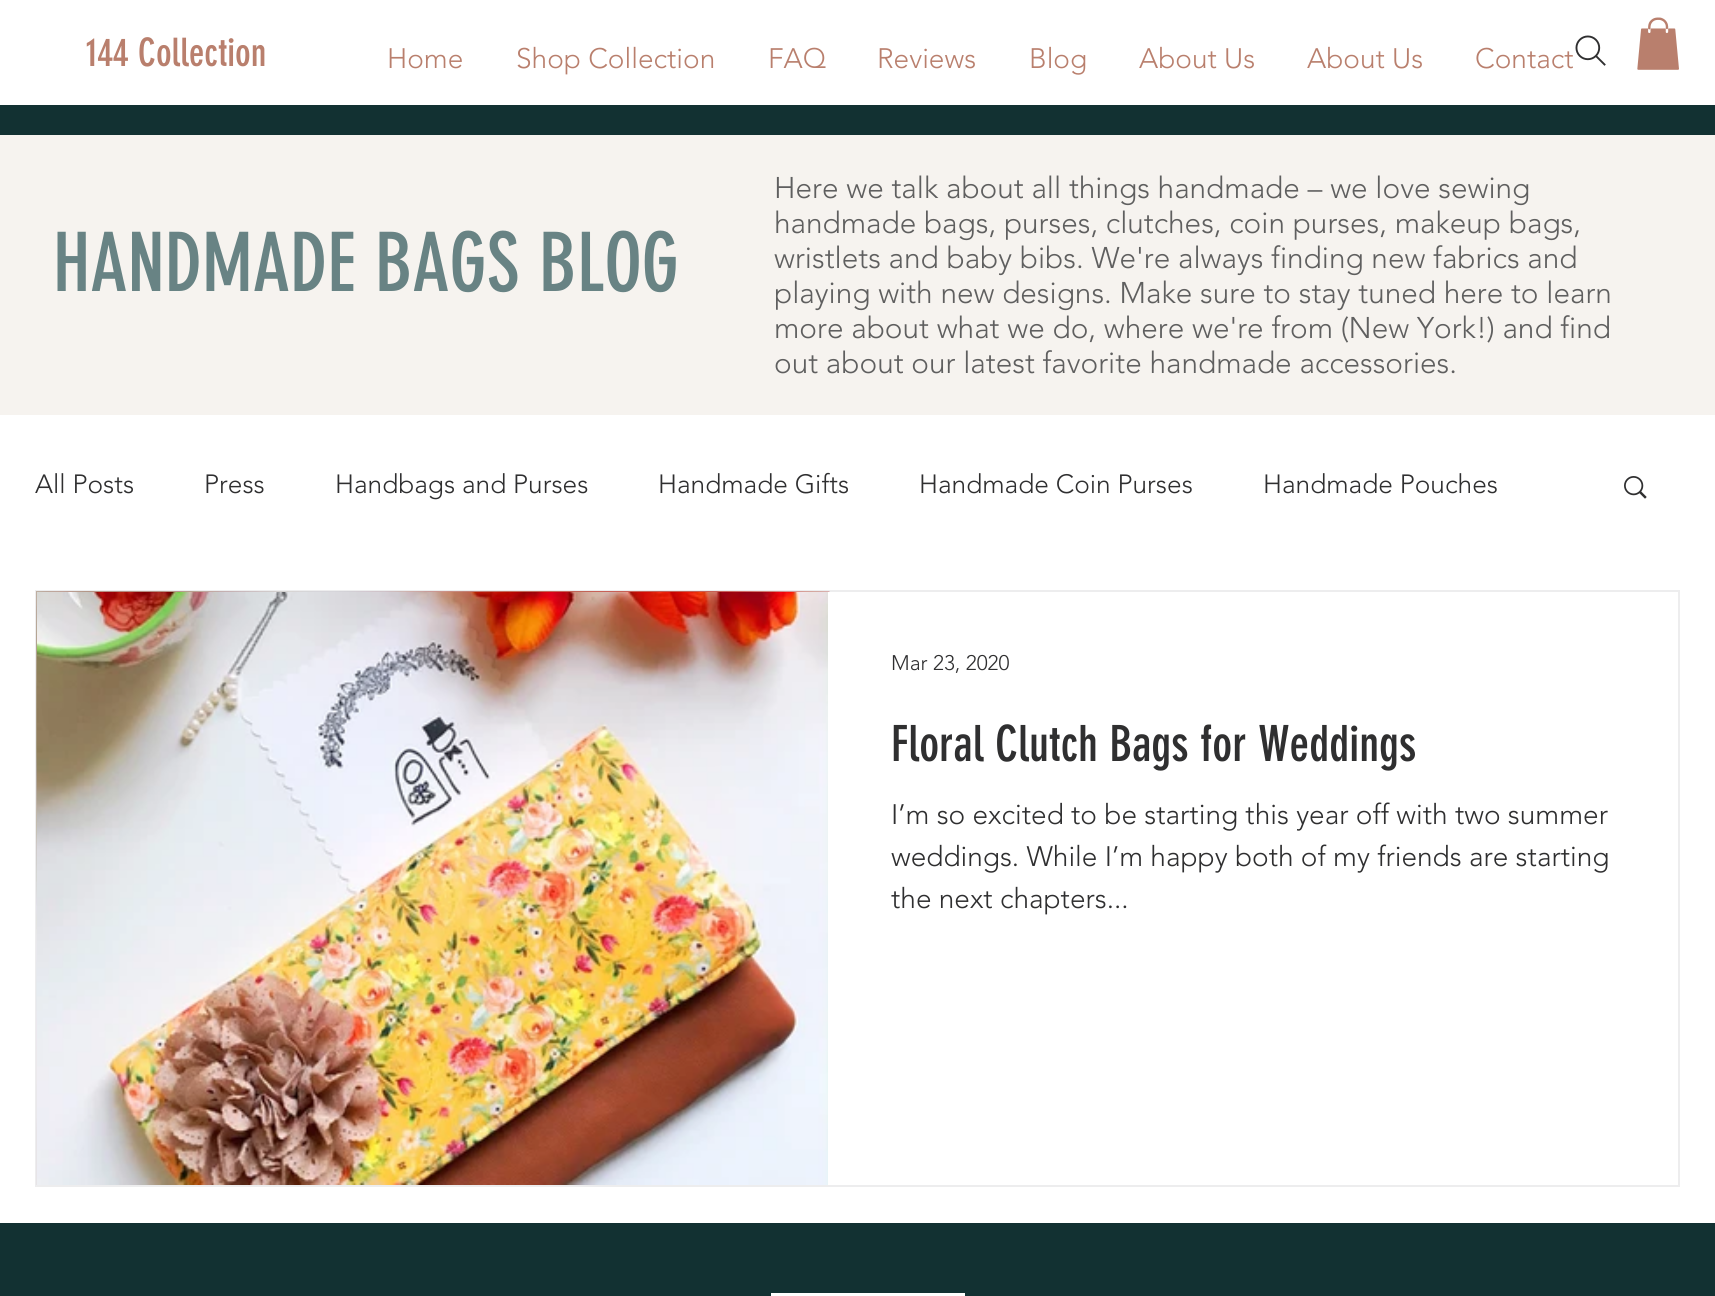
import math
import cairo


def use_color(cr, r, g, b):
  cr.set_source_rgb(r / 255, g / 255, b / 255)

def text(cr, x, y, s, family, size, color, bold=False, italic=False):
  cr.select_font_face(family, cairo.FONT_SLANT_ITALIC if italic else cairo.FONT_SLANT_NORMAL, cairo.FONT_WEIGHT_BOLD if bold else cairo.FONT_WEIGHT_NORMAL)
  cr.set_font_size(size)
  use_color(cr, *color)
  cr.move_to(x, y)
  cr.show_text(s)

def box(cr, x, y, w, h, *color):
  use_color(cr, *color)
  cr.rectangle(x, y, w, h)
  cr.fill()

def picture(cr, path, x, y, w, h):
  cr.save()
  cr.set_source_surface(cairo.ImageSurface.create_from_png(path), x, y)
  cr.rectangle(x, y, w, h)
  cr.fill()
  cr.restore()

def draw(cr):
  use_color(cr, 246, 243, 239)
  cr.paint()
  box(cr, 0, 0, 1715, 105, 255, 255, 255)
  picture(cr, "img_01.png", 1575, 35, 31, 31)
  picture(cr, "img_02.png", 1637, 17, 42, 53)
  box(cr, 0, 105, 1715, 30, 18, 49, 50)
  box(cr, 0, 415, 1715, 808, 255, 255, 255)
  picture(cr, "img_03.png", 1624, 476, 23, 23)
  cr.rectangle(36, 591, 1643, 595)
  use_color(cr, 237, 237, 238)
  cr.stroke()
  picture(cr, "img_04.png", 36, 591, 794, 594)
  picture(cr, "img_05.png", 37, 592, 791, 593)
  box(cr, 828, 592, 2, 593, 255, 255, 255)
  box(cr, 0, 1223, 1715, 73, 18, 49, 50)
  box(cr, 771, 1293, 194, 3, 254, 254, 254)
  text(cr, 86, 66, "144 Collection", "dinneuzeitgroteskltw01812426", 38.5, (185, 127, 109))
  text(cr, 387, 68, "Home", "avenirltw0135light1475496 Light", 28, (185, 127, 109))
  text(cr, 516, 68, "Shop Collection", "avenirltw0135light1475496 Light", 28, (185, 127, 109))
  text(cr, 768, 68, "FAQ", "avenirltw0135light1475496 Light", 28, (185, 127, 109))
  text(cr, 877, 68, "Reviews", "avenirltw0135light1475496 Light", 28, (185, 127, 109))
  text(cr, 1029, 68, "Blog", "avenirltw0135light1475496 Light", 28, (185, 127, 109))
  text(cr, 1139, 68, "About Us", "avenirltw0135light1475496 Light", 28, (185, 127, 109))
  text(cr, 1307, 68, "About Us", "avenirltw0135light1475496 Light", 28, (185, 127, 109))
  text(cr, 1475, 68, "Contact", "avenirltw0135light1475496 Light", 28, (185, 127, 109))
  text(cr, 53, 291, "HANDMADE BAGS BLOG", "dinneuzeitgroteskltw01812426", 80.5, (104, 131, 132))
  text(cr, 774, 198, "Here we talk about all things handmade – we love sewing", "avenirltw0135light1475496 Light", 29.75, (95, 95, 95))
  text(cr, 774, 233, "handmade bags, purses, clutches, coin purses, makeup bags,", "avenirltw0135light1475496 Light", 29.75, (95, 95, 95))
  text(cr, 774, 268, "wristlets and baby bibs. We're always finding new fabrics and", "avenirltw0135light1475496 Light", 29.75, (95, 95, 95))
  text(cr, 774, 303, "playing with new designs. Make sure to stay tuned here to learn", "avenirltw0135light1475496 Light", 29.75, (95, 95, 95))
  text(cr, 774, 338, "more about what we do, where we're from (New York!) and find", "avenirltw0135light1475496 Light", 29.75, (95, 95, 95))
  text(cr, 774, 373, "out about our latest favorite handmade accessories.", "avenirltw0135light1475496 Light", 29.75, (95, 95, 95))
  text(cr, 35, 493, "All Posts", "avenirltw0135light1475496 Light", 26.25, (47, 47, 48))
  text(cr, 204, 493, "Press", "avenirltw0135light1475496 Light", 26.25, (47, 47, 48))
  text(cr, 335, 493, "Handbags and Purses", "avenirltw0135light1475496 Light", 26.25, (47, 47, 48))
  text(cr, 658, 493, "Handmade Gifts", "avenirltw0135light1475496 Light", 26.25, (47, 47, 48))
  text(cr, 919, 493, "Handmade Coin Purses", "avenirltw0135light1475496 Light", 26.25, (47, 47, 48))
  text(cr, 1263, 493, "Handmade Pouches", "avenirltw0135light1475496 Light", 26.25, (47, 47, 48))
  text(cr, 891, 670, "Mar 23, 2020", "avenirltw0135light1475496 Light", 21, (47, 47, 48))
  text(cr, 891, 761, "Floral Clutch Bags for Weddings", "dinneuzeitgroteskltw01812426", 49, (47, 47, 48))
  text(cr, 891, 824, "I’m so excited to be starting this year off with two summer", "avenirltw0135light1475496 Light", 28, (47, 47, 48))
  text(cr, 891, 866, "weddings. While I’m happy both of my friends are starting", "avenirltw0135light1475496 Light", 28, (47, 47, 48))
  text(cr, 891, 908, "the next chapters...", "avenirltw0135light1475496 Light", 28, (47, 47, 48))


surface = cairo.ImageSurface(cairo.FORMAT_RGB24, 1715, 1296)
cr = cairo.Context(surface)
options = cairo.FontOptions()
options.set_hint_metrics(cairo.HINT_METRICS_OFF)
options.set_hint_style(cairo.HINT_STYLE_NONE)
cr.set_font_options(options)
cr.set_miter_limit(4)
draw(cr)
surface.write_to_png("out.png")
